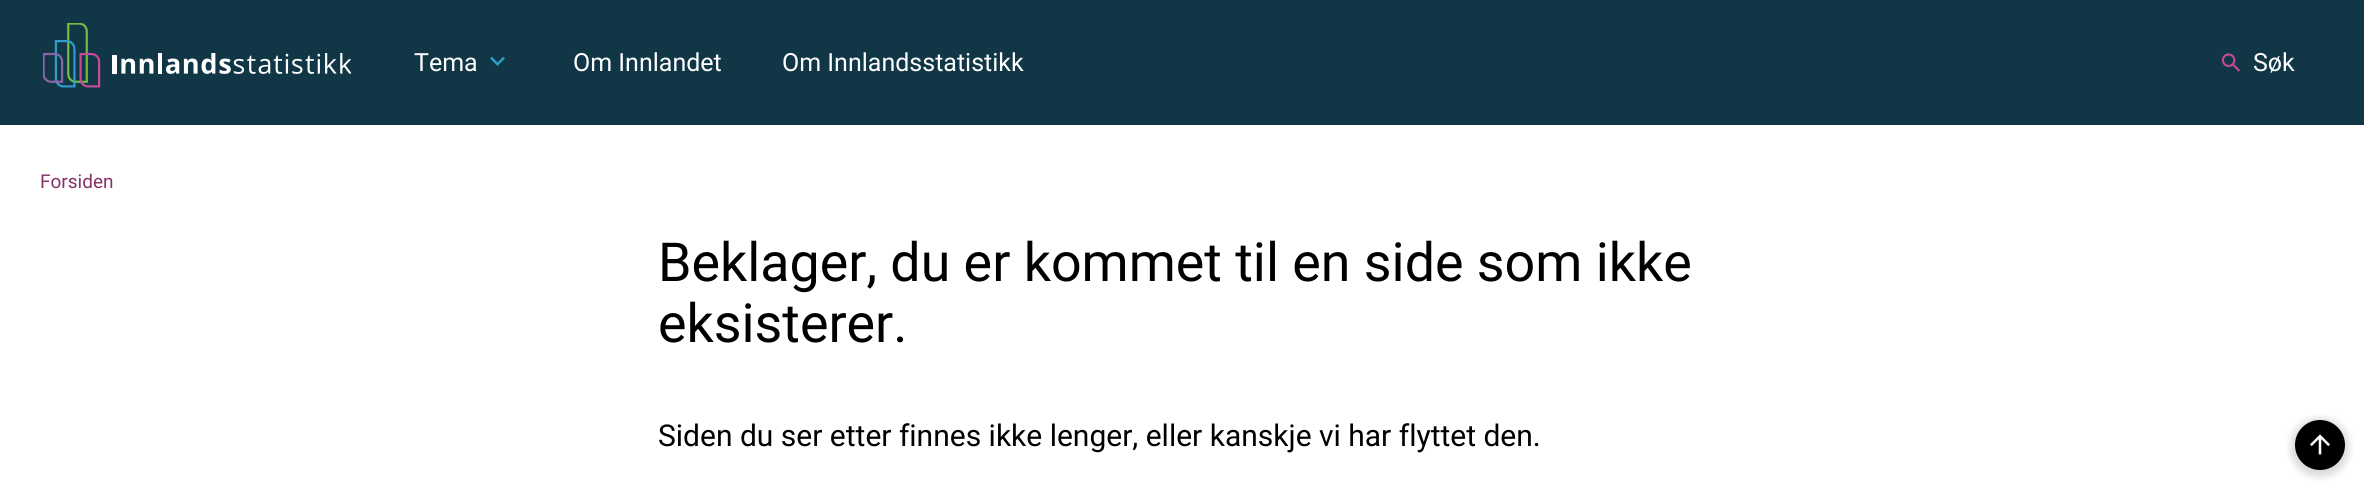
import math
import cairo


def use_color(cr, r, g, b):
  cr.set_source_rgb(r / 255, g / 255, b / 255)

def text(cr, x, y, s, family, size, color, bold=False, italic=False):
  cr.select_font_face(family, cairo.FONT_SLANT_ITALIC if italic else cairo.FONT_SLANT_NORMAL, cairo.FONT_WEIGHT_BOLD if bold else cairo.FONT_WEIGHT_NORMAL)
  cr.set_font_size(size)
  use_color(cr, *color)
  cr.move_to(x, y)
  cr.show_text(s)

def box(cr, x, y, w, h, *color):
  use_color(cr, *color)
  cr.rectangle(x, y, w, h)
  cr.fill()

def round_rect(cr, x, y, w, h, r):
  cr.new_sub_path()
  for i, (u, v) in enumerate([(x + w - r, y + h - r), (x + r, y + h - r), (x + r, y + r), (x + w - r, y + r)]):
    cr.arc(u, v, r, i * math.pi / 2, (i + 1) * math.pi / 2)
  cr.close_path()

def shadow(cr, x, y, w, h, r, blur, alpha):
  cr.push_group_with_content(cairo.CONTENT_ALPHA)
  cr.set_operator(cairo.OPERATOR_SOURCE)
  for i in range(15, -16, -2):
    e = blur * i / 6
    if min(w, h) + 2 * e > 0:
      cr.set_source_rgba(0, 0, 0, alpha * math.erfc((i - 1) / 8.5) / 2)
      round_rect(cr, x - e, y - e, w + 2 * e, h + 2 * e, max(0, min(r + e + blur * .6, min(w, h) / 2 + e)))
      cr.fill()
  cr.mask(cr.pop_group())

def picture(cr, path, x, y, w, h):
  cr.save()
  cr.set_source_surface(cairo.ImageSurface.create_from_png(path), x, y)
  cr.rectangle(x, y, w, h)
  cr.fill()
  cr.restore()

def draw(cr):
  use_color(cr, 255, 255, 255)
  cr.paint()
  box(cr, 0, 0, 2364, 125, 17, 55, 70)
  picture(cr, "img_01.png", 43, 23, 308, 65)
  picture(cr, "img_02.png", 490, 56, 15, 10)
  picture(cr, "img_03.png", 2221, 53, 19, 19)
  use_color(cr, 0, 0, 0)
  shadow(cr, 2291, 419, 58, 57, 28.5, 4, 0.16)
  use_color(cr, 0, 0, 0)
  cr.arc(2320, 445, 23.5, 0, 2 * math.pi)
  cr.fill_preserve()
  cr.set_line_width(3)
  cr.stroke()
  picture(cr, "img_04.png", 2310, 434, 20, 21)
  text(cr, 414, 71, "Tema", "Roboto", 25, (255, 255, 255))
  text(cr, 573, 71, "Om Innlandet", "Roboto", 25, (255, 255, 255))
  text(cr, 782, 71, "Om Innlandsstatistikk", "Roboto", 25, (255, 255, 255))
  text(cr, 2253, 71, "Søk", "Roboto", 25, (255, 255, 255))
  text(cr, 40, 188, "Forsiden", "Roboto", 19, (135, 51, 106))
  text(cr, 658, 281, "Beklager, du er kommet til en side som ikke", "Roboto", 53.75, (0, 0, 0))
  text(cr, 658, 342, "eksisterer.", "Roboto", 53.75, (0, 0, 0))
  text(cr, 658, 446, "Siden du ser etter finnes ikke lenger, eller kanskje vi har flyttet den.", "Roboto", 30, (0, 0, 0))


surface = cairo.ImageSurface(cairo.FORMAT_RGB24, 2364, 489)
cr = cairo.Context(surface)
options = cairo.FontOptions()
options.set_hint_metrics(cairo.HINT_METRICS_OFF)
options.set_hint_style(cairo.HINT_STYLE_NONE)
cr.set_font_options(options)
cr.set_miter_limit(4)
draw(cr)
surface.write_to_png("out.png")
